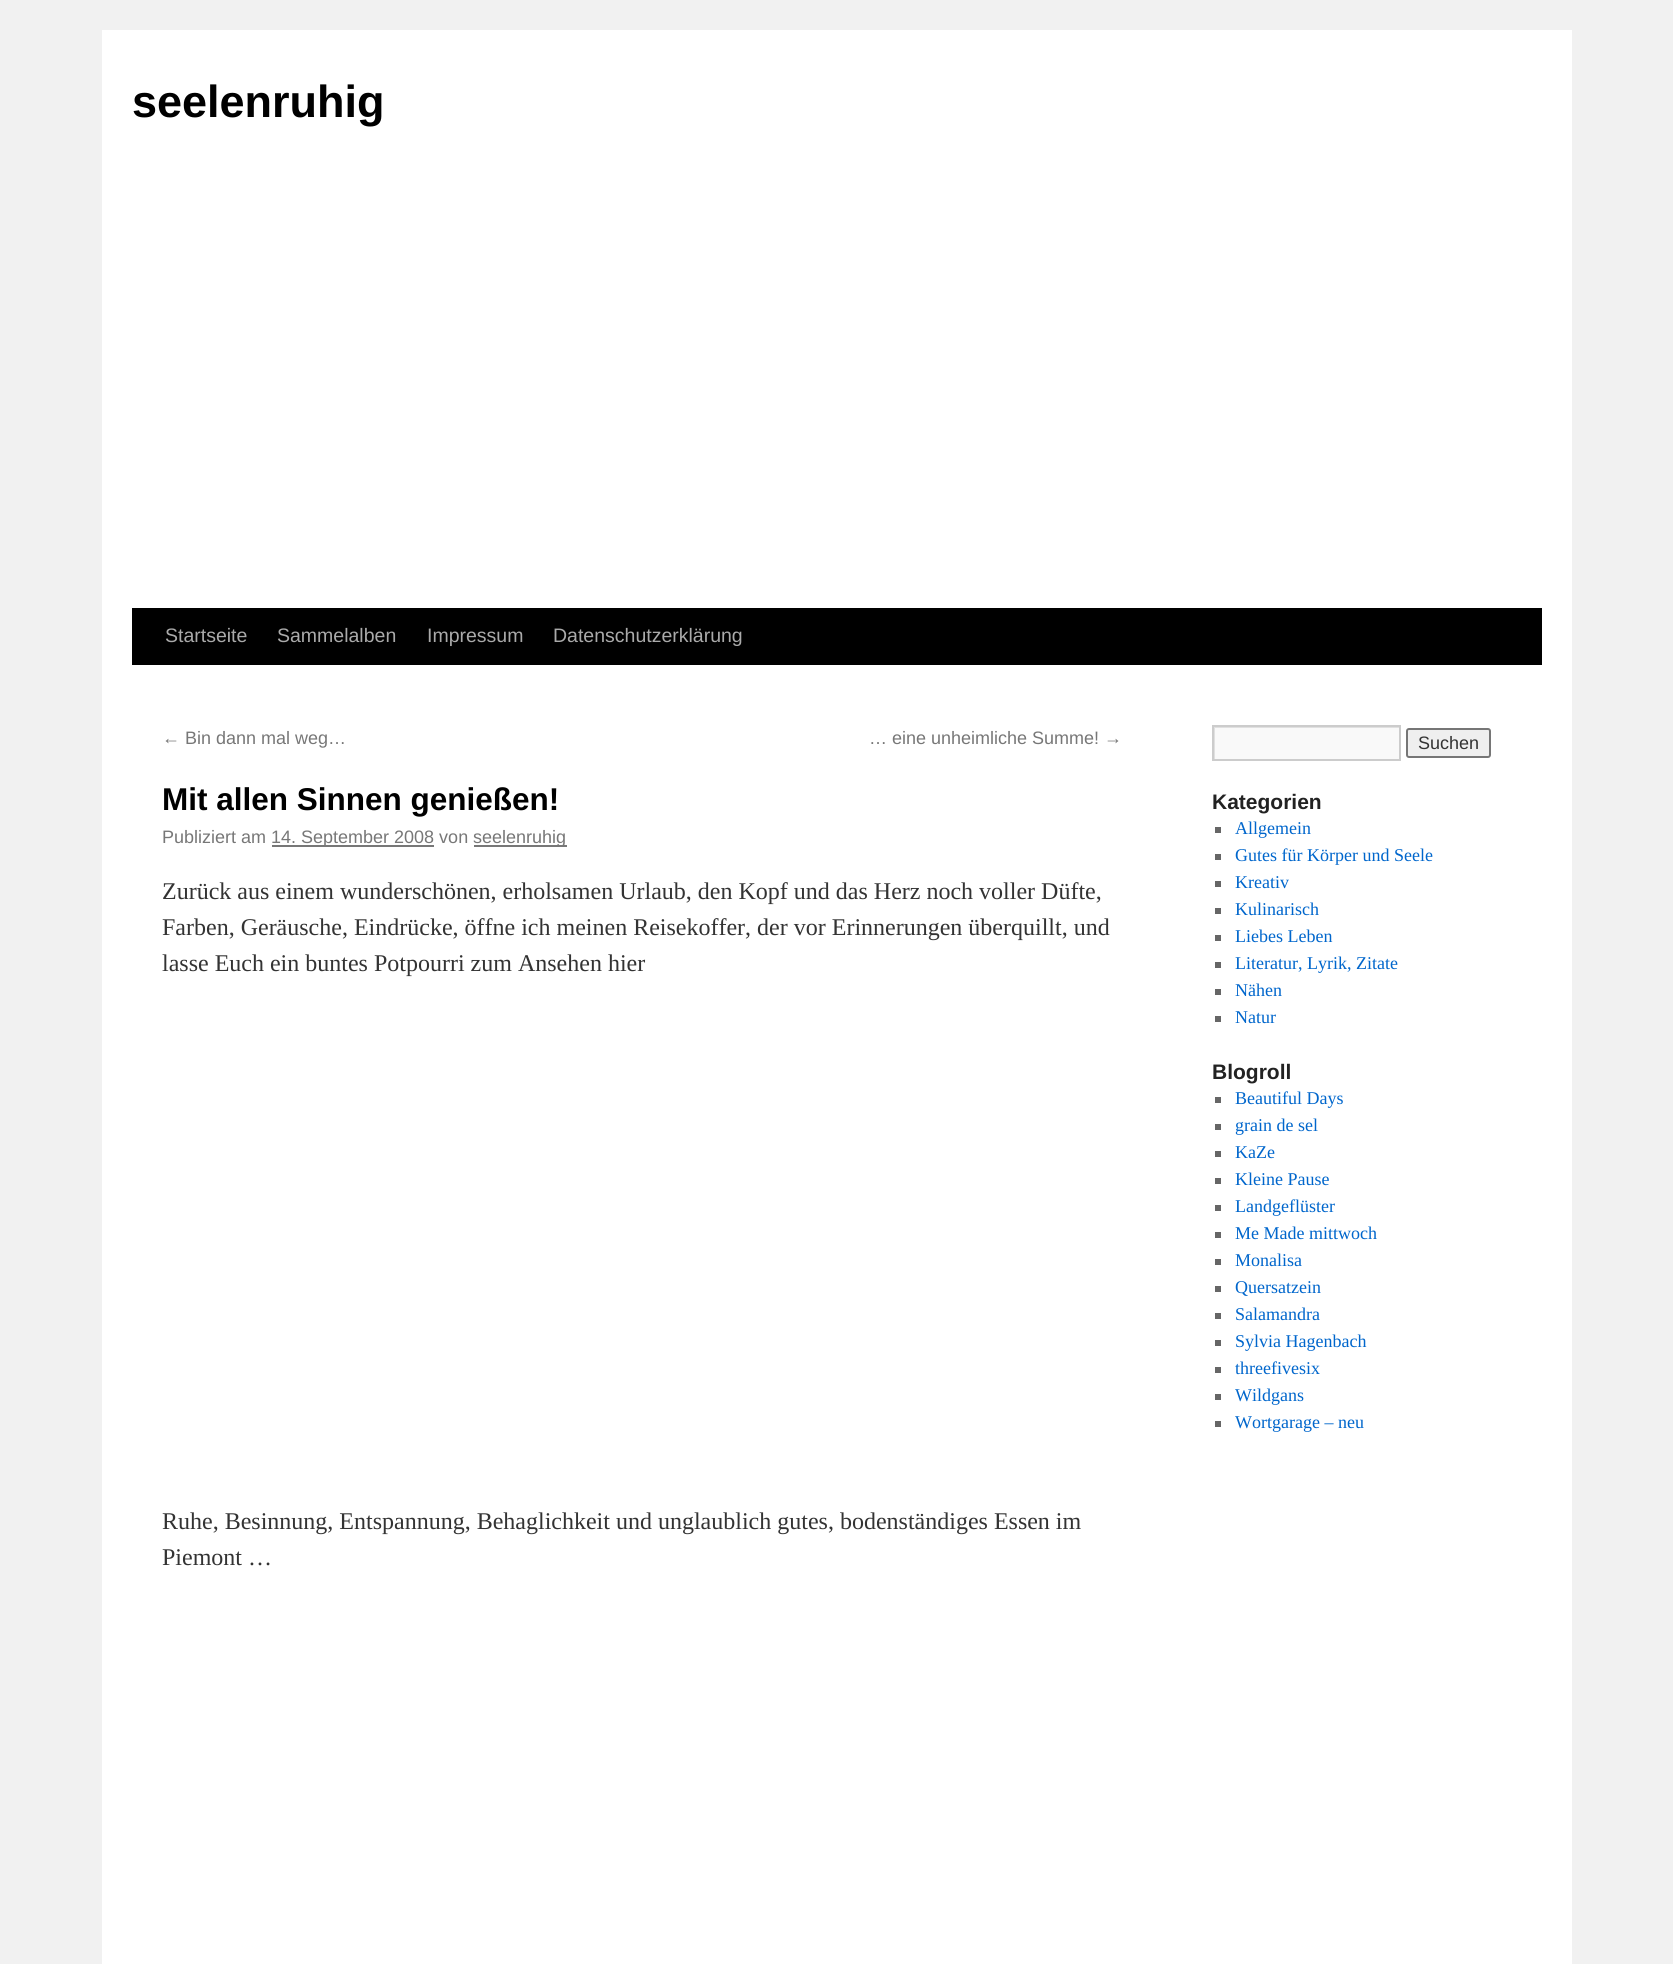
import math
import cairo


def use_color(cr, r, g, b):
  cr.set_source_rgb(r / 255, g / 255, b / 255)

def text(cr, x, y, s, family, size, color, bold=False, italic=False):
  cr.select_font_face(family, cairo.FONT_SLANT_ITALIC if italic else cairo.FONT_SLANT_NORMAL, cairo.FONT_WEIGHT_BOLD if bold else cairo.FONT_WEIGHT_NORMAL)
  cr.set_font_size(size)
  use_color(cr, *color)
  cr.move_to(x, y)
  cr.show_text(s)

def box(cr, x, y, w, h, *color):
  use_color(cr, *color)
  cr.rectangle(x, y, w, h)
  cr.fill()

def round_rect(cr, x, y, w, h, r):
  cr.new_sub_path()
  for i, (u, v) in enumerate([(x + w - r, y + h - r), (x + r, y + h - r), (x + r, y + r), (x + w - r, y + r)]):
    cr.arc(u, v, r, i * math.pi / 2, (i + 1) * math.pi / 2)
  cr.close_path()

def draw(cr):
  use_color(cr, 241, 241, 241)
  cr.paint()
  box(cr, 102, 30, 1470, 1934, 255, 255, 255)
  box(cr, 132, 608, 1410, 57, 0, 0, 0)
  box(cr, 272, 845, 162, 2, 119, 119, 119)
  box(cr, 474, 845, 93, 2, 119, 119, 119)
  box(cr, 1215, 728, 184, 31, 249, 249, 249)
  cr.save()
  cr.rectangle(1214, 726, 186, 33)
  cr.clip()
  use_color(cr, 224, 224, 224)
  cr.set_fill_rule(cairo.FILL_RULE_EVEN_ODD)
  cr.new_path()
  cr.move_to(1065, 578)
  cr.line_to(1548, 578)
  cr.line_to(1548, 908)
  cr.line_to(1065, 908)
  cr.close_path()
  cr.move_to(1215, 728)
  cr.line_to(1401, 728)
  cr.line_to(1401, 760)
  cr.line_to(1215, 760)
  cr.close_path()
  cr.fill()
  cr.restore()
  cr.rectangle(1213, 726, 187, 34)
  use_color(cr, 204, 204, 204)
  cr.stroke()
  use_color(cr, 239, 239, 239)
  round_rect(cr, 1407, 729, 83, 28, 2)
  cr.fill_preserve()
  use_color(cr, 118, 118, 118)
  cr.stroke()
  box(cr, 1215, 827, 6, 6, 102, 102, 102)
  box(cr, 1215, 854, 6, 6, 102, 102, 102)
  box(cr, 1215, 881, 6, 6, 102, 102, 102)
  box(cr, 1215, 908, 6, 6, 102, 102, 102)
  box(cr, 1215, 935, 6, 6, 102, 102, 102)
  box(cr, 1215, 962, 6, 6, 102, 102, 102)
  box(cr, 1215, 989, 6, 6, 102, 102, 102)
  box(cr, 1215, 1016, 6, 6, 102, 102, 102)
  box(cr, 1215, 1097, 6, 6, 102, 102, 102)
  box(cr, 1215, 1124, 6, 6, 102, 102, 102)
  box(cr, 1215, 1151, 6, 6, 102, 102, 102)
  box(cr, 1215, 1178, 6, 6, 102, 102, 102)
  box(cr, 1215, 1205, 6, 6, 102, 102, 102)
  box(cr, 1215, 1232, 6, 6, 102, 102, 102)
  box(cr, 1215, 1259, 6, 6, 102, 102, 102)
  box(cr, 1215, 1286, 6, 6, 102, 102, 102)
  box(cr, 1215, 1313, 6, 6, 102, 102, 102)
  box(cr, 1215, 1340, 6, 6, 102, 102, 102)
  box(cr, 1215, 1367, 6, 6, 102, 102, 102)
  box(cr, 1215, 1394, 6, 6, 102, 102, 102)
  box(cr, 1215, 1421, 6, 6, 102, 102, 102)
  text(cr, 132, 117, "seelenruhig", "Liberation Sans", 45, (0, 0, 0), bold=True)
  text(cr, 165, 642, "Startseite", "Liberation Sans", 19.5, (170, 170, 170))
  text(cr, 277, 642, "Sammelalben", "Liberation Sans", 19.5, (170, 170, 170))
  text(cr, 427, 642, "Impressum", "Liberation Sans", 19.5, (170, 170, 170))
  text(cr, 553, 642, "Datenschutzerklärung", "Liberation Sans", 19.5, (170, 170, 170))
  text(cr, 162, 744, "← Bin dann mal weg…", "Liberation Sans", 18, (119, 119, 119))
  text(cr, 869, 744, "… eine unheimliche Summe! →", "Liberation Sans", 18, (119, 119, 119))
  text(cr, 162, 810, "Mit allen Sinnen genießen!", "Liberation Sans", 31.5, (0, 0, 0), bold=True)
  text(cr, 162, 843, "Publiziert am", "Liberation Sans", 18, (119, 119, 119))
  text(cr, 271, 843, "14. September 2008 von", "Liberation Sans", 18, (119, 119, 119))
  text(cr, 473, 843, "seelenruhig", "Liberation Sans", 18, (119, 119, 119))
  text(cr, 162, 899, "Zurück aus einem wunderschönen, erholsamen Urlaub, den Kopf und das Herz noch voller Düfte,", "Liberation Serif", 24, (51, 51, 51))
  text(cr, 162, 935, "Farben, Geräusche, Eindrücke, öffne ich meinen Reisekoffer, der vor Erinnerungen überquillt, und", "Liberation Serif", 24, (51, 51, 51))
  text(cr, 162, 971, "lasse Euch ein buntes Potpourri zum Ansehen hier", "Liberation Serif", 24, (51, 51, 51))
  text(cr, 162, 1529, "Ruhe, Besinnung, Entspannung, Behaglichkeit und unglaublich gutes, bodenständiges Essen im", "Liberation Serif", 24, (51, 51, 51))
  text(cr, 162, 1565, "Piemont …", "Liberation Serif", 24, (51, 51, 51))
  text(cr, 1418, 749, "Suchen", "Liberation Sans", 18, (51, 51, 51))
  text(cr, 1212, 809, "Kategorien", "Liberation Sans", 21, (34, 34, 34), bold=True)
  text(cr, 1235, 834, "Allgemein", "Liberation Serif", 18, (0, 102, 204))
  text(cr, 1235, 861, "Gutes für Körper und Seele", "Liberation Serif", 18, (0, 102, 204))
  text(cr, 1235, 888, "Kreativ", "Liberation Serif", 18, (0, 102, 204))
  text(cr, 1235, 915, "Kulinarisch", "Liberation Serif", 18, (0, 102, 204))
  text(cr, 1235, 942, "Liebes Leben", "Liberation Serif", 18, (0, 102, 204))
  text(cr, 1235, 969, "Literatur, Lyrik, Zitate", "Liberation Serif", 18, (0, 102, 204))
  text(cr, 1235, 996, "Nähen", "Liberation Serif", 18, (0, 102, 204))
  text(cr, 1235, 1023, "Natur", "Liberation Serif", 18, (0, 102, 204))
  text(cr, 1212, 1079, "Blogroll", "Liberation Sans", 21, (34, 34, 34), bold=True)
  text(cr, 1235, 1104, "Beautiful Days", "Liberation Serif", 18, (0, 102, 204))
  text(cr, 1235, 1131, "grain de sel", "Liberation Serif", 18, (0, 102, 204))
  text(cr, 1235, 1158, "KaZe", "Liberation Serif", 18, (0, 102, 204))
  text(cr, 1235, 1185, "Kleine Pause", "Liberation Serif", 18, (0, 102, 204))
  text(cr, 1235, 1212, "Landgeflüster", "Liberation Serif", 18, (0, 102, 204))
  text(cr, 1235, 1239, "Me Made mittwoch", "Liberation Serif", 18, (0, 102, 204))
  text(cr, 1235, 1266, "Monalisa", "Liberation Serif", 18, (0, 102, 204))
  text(cr, 1235, 1293, "Quersatzein", "Liberation Serif", 18, (0, 102, 204))
  text(cr, 1235, 1320, "Salamandra", "Liberation Serif", 18, (0, 102, 204))
  text(cr, 1235, 1347, "Sylvia Hagenbach", "Liberation Serif", 18, (0, 102, 204))
  text(cr, 1235, 1374, "threefivesix", "Liberation Serif", 18, (0, 102, 204))
  text(cr, 1235, 1401, "Wildgans", "Liberation Serif", 18, (0, 102, 204))
  text(cr, 1235, 1428, "Wortgarage – neu", "Liberation Serif", 18, (0, 102, 204))


surface = cairo.ImageSurface(cairo.FORMAT_RGB24, 1673, 1964)
cr = cairo.Context(surface)
options = cairo.FontOptions()
options.set_hint_metrics(cairo.HINT_METRICS_OFF)
options.set_hint_style(cairo.HINT_STYLE_NONE)
cr.set_font_options(options)
cr.set_miter_limit(4)
draw(cr)
surface.write_to_png("out.png")
